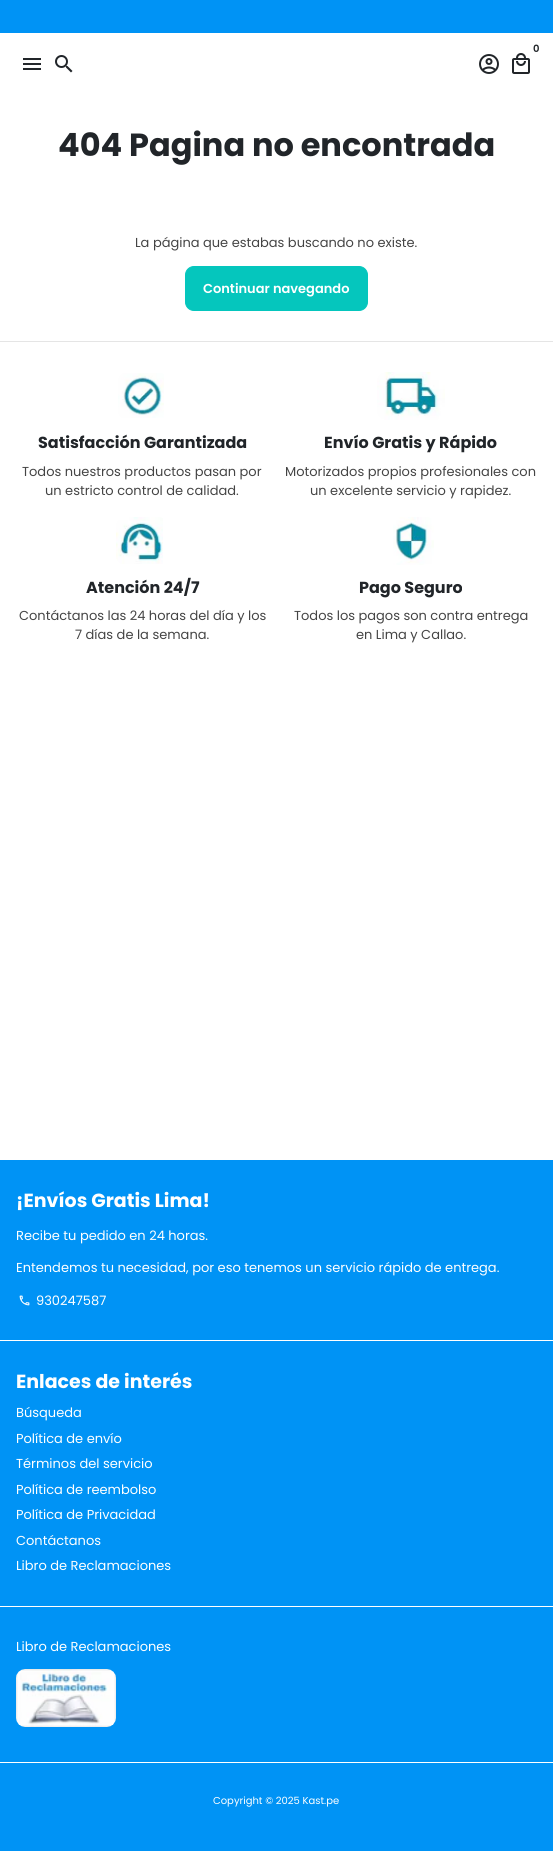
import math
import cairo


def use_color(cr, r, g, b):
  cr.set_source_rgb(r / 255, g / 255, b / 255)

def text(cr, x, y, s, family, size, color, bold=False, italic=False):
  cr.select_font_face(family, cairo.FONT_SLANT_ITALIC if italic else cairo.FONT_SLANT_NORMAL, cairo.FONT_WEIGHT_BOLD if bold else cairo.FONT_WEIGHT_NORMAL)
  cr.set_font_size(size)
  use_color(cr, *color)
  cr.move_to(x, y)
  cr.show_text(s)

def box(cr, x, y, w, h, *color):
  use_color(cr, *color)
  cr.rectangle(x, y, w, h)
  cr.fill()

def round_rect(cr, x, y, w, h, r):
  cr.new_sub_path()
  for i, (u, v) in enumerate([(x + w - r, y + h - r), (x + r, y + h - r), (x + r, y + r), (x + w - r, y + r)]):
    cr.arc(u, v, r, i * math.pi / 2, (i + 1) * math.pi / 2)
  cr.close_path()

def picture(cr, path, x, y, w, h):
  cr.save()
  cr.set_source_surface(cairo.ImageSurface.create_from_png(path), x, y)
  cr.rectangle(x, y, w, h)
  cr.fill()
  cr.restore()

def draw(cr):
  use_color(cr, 255, 255, 255)
  cr.paint()
  box(cr, 0, 0, 553, 33, 0, 147, 245)
  picture(cr, "img_01.png", 512, 53, 18, 21)
  picture(cr, "img_02.png", 479, 54, 20, 20)
  picture(cr, "img_03.png", 23, 58, 18, 12)
  picture(cr, "img_04.png", 55, 55, 18, 18)
  use_color(cr, 5, 198, 189)
  round_rect(cr, 185.5, 266.5, 182, 44, 8.5)
  cr.fill_preserve()
  cr.set_line_width(1)
  cr.stroke()
  box(cr, 0, 341, 553, 1, 229, 229, 229)
  picture(cr, "img_05.png", 118, 373, 46, 45)
  picture(cr, "img_06.png", 377, 372, 68, 48)
  picture(cr, "img_07.png", 116, 517, 47, 47)
  picture(cr, "img_08.png", 393, 517, 41, 48)
  box(cr, 0, 1160, 553, 691, 0, 147, 245)
  picture(cr, "img_09.png", 19, 1295, 11, 11)
  box(cr, 0, 1340, 553, 1, 255, 255, 255)
  box(cr, 0, 1606, 553, 1, 255, 255, 255)
  picture(cr, "img_10.png", 16, 1669, 100, 58)
  box(cr, 0, 1762, 553, 1, 255, 255, 255)
  text(cr, 533, 52, "0", "Poppins SemiBold", 10, (33, 37, 41))
  text(cr, 58, 156, "404 Pagina no encontrada", "Poppins", 32, (33, 37, 41), bold=True)
  text(cr, 135, 247, "La página que estabas buscando no existe.", "Poppins", 13, (68, 68, 68))
  text(cr, 203, 293, "Continuar navegando", "Poppins SemiBold", 13, (255, 255, 255))
  text(cr, 38, 448, "Satisfacción Garantizada", "Poppins", 16, (33, 37, 41), bold=True)
  text(cr, 22, 476, "Todos nuestros productos pasan por", "Poppins", 13, (68, 68, 68))
  text(cr, 45, 495, "un estricto control de calidad.", "Poppins", 13, (68, 68, 68))
  text(cr, 324, 448, "Envío Gratis y Rápido", "Poppins", 16, (33, 37, 41), bold=True)
  text(cr, 285, 476, "Motorizados propios profesionales con", "Poppins", 13, (68, 68, 68))
  text(cr, 310, 495, "un excelente servicio y rapidez.", "Poppins", 13, (68, 68, 68))
  text(cr, 86, 593, "Atención 24/7", "Poppins", 16, (33, 37, 41), bold=True)
  text(cr, 19, 620, "Contáctanos las 24 horas del día y los", "Poppins", 13, (68, 68, 68))
  text(cr, 75, 639, "7 días de la semana.", "Poppins", 13, (68, 68, 68))
  text(cr, 359, 593, "Pago Seguro", "Poppins", 16, (33, 37, 41), bold=True)
  text(cr, 294, 620, "Todos los pagos son contra entrega", "Poppins", 13, (68, 68, 68))
  text(cr, 356, 639, "en Lima y Callao.", "Poppins", 13, (68, 68, 68))
  text(cr, 16, 1207, "¡Envíos Gratis Lima!", "Poppins", 19, (255, 255, 255), bold=True)
  text(cr, 16, 1240, "Recibe tu pedido en 24 horas.", "Poppins", 13, (255, 255, 255))
  text(cr, 16, 1272, "Entendemos tu necesidad, por eso tenemos un servicio rápido de entrega.", "Poppins", 13, (255, 255, 255))
  text(cr, 36, 1305, "930247587", "Poppins", 13, (255, 255, 255))
  text(cr, 16, 1388, "Enlaces de interés", "Poppins", 19, (255, 255, 255), bold=True)
  text(cr, 16, 1417, "Búsqueda", "Poppins", 13, (255, 255, 255))
  text(cr, 16, 1443, "Política de envío", "Poppins", 13, (255, 255, 255))
  text(cr, 16, 1468, "Términos del servicio", "Poppins", 13, (255, 255, 255))
  text(cr, 16, 1494, "Política de reembolso", "Poppins", 13, (255, 255, 255))
  text(cr, 16, 1519, "Política de Privacidad", "Poppins", 13, (255, 255, 255))
  text(cr, 16, 1545, "Contáctanos", "Poppins", 13, (255, 255, 255))
  text(cr, 16, 1570, "Libro de Reclamaciones", "Poppins", 13, (255, 255, 255))
  text(cr, 16, 1651, "Libro de Reclamaciones", "Poppins", 13, (255, 255, 255))
  text(cr, 213, 1804, "Copyright © 2025 Kast.pe", "Poppins", 10, (255, 255, 255))


surface = cairo.ImageSurface(cairo.FORMAT_RGB24, 553, 1851)
cr = cairo.Context(surface)
options = cairo.FontOptions()
options.set_hint_metrics(cairo.HINT_METRICS_OFF)
options.set_hint_style(cairo.HINT_STYLE_NONE)
cr.set_font_options(options)
cr.set_miter_limit(4)
draw(cr)
surface.write_to_png("out.png")
